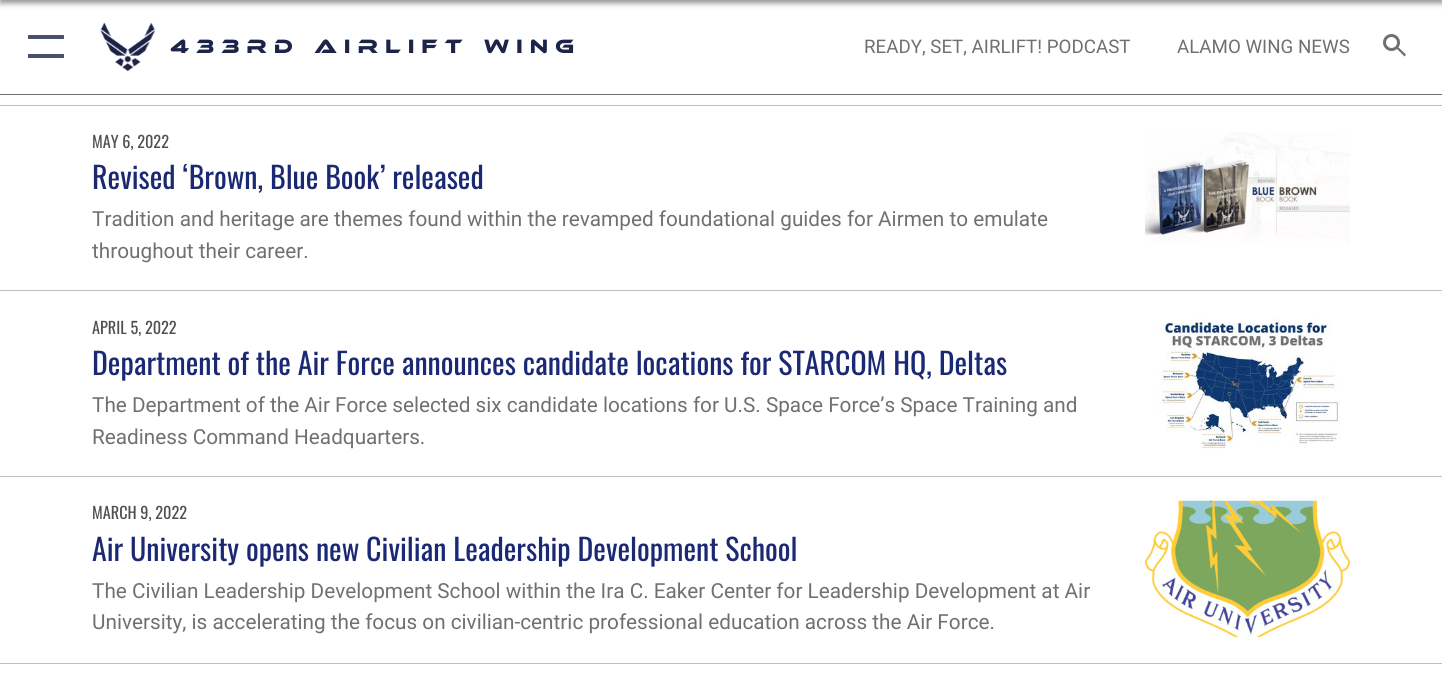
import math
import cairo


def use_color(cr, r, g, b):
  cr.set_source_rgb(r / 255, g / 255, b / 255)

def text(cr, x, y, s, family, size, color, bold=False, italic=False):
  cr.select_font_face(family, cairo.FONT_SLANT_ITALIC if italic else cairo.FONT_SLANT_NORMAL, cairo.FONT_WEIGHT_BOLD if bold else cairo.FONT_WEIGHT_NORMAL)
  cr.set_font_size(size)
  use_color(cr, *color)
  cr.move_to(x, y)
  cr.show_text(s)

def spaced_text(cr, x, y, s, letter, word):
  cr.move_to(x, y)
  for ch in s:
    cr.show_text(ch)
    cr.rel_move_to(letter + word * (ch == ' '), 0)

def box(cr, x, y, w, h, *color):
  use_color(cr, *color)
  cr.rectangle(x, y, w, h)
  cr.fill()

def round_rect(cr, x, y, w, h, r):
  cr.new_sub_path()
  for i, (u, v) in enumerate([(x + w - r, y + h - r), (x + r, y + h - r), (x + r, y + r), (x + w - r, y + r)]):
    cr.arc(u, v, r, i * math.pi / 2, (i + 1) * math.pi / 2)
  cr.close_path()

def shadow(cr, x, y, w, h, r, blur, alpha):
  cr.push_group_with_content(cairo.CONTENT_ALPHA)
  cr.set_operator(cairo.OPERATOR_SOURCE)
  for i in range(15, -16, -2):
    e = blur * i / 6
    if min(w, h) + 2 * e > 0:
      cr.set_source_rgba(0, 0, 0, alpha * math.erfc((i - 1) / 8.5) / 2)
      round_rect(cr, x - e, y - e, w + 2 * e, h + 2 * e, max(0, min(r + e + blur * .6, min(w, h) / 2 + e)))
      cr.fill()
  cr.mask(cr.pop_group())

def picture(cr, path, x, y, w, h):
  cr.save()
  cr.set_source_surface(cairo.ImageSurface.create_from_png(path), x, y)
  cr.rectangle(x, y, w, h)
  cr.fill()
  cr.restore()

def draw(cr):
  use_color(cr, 255, 255, 255)
  cr.paint()
  use_color(cr, 0, 0, 0)
  shadow(cr, 0, -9, 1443, 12, 0, 3, 0.45)
  box(cr, 0, 94, 1442, 1, 112, 112, 112)
  use_color(cr, 73, 80, 109)
  round_rect(cr, 28, 35, 36, 4, 0.5)
  cr.fill()
  round_rect(cr, 28, 54, 36, 4, 0.5)
  cr.fill()
  picture(cr, "img_01.png", 100, 22, 56, 50)
  cr.arc(1391.5, 42.5, 7, 0, 2 * math.pi)
  use_color(cr, 112, 112, 112)
  cr.set_line_width(3)
  cr.stroke()
  cr.new_path()
  cr.move_to(1397, 46)
  cr.line_to(1406, 54.5)
  cr.line_to(1404.5, 56.5)
  cr.line_to(1395.5, 47.5)
  cr.close_path()
  cr.fill()
  box(cr, 0, 105, 1442, 1, 193, 189, 189)
  picture(cr, "img_02.png", 1145, 132, 205, 114)
  box(cr, 0, 290, 1442, 1, 193, 189, 189)
  picture(cr, "img_03.png", 1156, 318, 184, 132)
  box(cr, 0, 476, 1442, 1, 193, 189, 189)
  picture(cr, "img_04.png", 1145, 500, 205, 137)
  box(cr, 0, 663, 1442, 1, 193, 189, 189)
  cr.select_font_face("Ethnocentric")
  cr.set_font_size(20)
  use_color(cr, 28, 36, 73)
  spaced_text(cr, 170, 53, "433rd Airlift Wing", 6.9, 0)
  text(cr, 864, 53, "READY, SET, AIRLIFT! PODCAST", "Roboto", 18.75, (112, 112, 112))
  text(cr, 1177, 53, "ALAMO WING NEWS", "Roboto", 18.75, (112, 112, 112))
  text(cr, 92, 148, "MAY 6, 2022", "Oswald", 16.25, (80, 80, 80))
  text(cr, 92, 189, "Revised ‘Brown, Blue Book’ released", "Oswald", 29.95, (27, 41, 116))
  text(cr, 92, 226, "Tradition and heritage are themes found within the revamped foundational guides for Airmen to emulate", "Roboto", 20.75, (112, 112, 112))
  text(cr, 92, 258, "throughout their career.", "Roboto", 20.75, (112, 112, 112))
  text(cr, 92, 334, "APRIL 5, 2022", "Oswald", 16.25, (80, 80, 80))
  text(cr, 92, 375, "Department of the Air Force announces candidate locations for STARCOM HQ, Deltas", "Oswald", 29.95, (27, 41, 116))
  text(cr, 92, 412, "The Department of the Air Force selected six candidate locations for U.S. Space Force’s Space Training and", "Roboto", 20.75, (112, 112, 112))
  text(cr, 92, 444, "Readiness Command Headquarters.", "Roboto", 20.75, (112, 112, 112))
  text(cr, 92, 519, "MARCH 9, 2022", "Oswald", 16.25, (80, 80, 80))
  text(cr, 92, 561, "Air University opens new Civilian Leadership Development School", "Oswald", 29.95, (27, 41, 116))
  text(cr, 92, 598, "The Civilian Leadership Development School within the Ira C. Eaker Center for Leadership Development at Air", "Roboto", 20.75, (112, 112, 112))
  text(cr, 92, 629, "University, is accelerating the focus on civilian-centric professional education across the Air Force.", "Roboto", 20.75, (112, 112, 112))


surface = cairo.ImageSurface(cairo.FORMAT_RGB24, 1442, 679)
cr = cairo.Context(surface)
options = cairo.FontOptions()
options.set_hint_metrics(cairo.HINT_METRICS_OFF)
options.set_hint_style(cairo.HINT_STYLE_NONE)
cr.set_font_options(options)
cr.set_miter_limit(4)
draw(cr)
surface.write_to_png("out.png")
